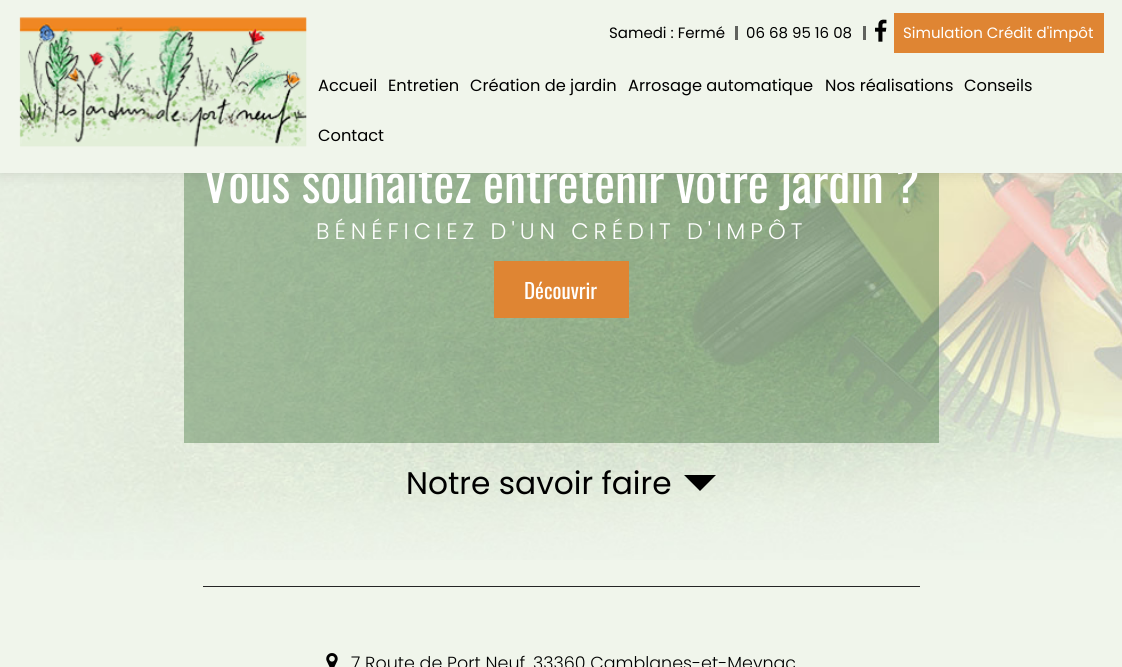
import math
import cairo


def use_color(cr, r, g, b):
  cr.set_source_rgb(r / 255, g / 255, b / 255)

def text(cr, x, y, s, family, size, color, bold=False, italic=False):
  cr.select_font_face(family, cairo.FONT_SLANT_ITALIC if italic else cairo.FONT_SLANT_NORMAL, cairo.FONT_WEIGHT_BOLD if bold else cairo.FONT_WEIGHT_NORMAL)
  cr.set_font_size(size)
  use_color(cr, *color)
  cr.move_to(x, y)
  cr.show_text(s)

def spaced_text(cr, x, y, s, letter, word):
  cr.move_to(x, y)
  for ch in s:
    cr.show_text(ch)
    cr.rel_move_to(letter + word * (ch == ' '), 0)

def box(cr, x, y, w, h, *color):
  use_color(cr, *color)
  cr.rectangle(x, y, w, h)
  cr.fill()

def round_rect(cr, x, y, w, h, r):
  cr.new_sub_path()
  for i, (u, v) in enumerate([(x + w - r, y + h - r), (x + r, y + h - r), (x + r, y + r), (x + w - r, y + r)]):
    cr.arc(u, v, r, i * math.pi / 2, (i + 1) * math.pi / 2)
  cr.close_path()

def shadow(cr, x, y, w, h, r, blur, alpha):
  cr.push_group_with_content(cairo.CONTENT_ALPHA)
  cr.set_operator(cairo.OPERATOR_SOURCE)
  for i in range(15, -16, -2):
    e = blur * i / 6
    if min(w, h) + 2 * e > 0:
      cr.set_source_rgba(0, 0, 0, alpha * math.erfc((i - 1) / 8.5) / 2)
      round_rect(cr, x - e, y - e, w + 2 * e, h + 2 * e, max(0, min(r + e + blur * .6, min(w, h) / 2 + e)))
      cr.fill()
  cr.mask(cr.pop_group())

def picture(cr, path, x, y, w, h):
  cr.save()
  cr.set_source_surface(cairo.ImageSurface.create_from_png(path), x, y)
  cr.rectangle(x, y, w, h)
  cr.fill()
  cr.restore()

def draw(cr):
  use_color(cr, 240, 245, 235)
  cr.paint()
  picture(cr, "img_03.png", 0, 173, 1122, 387)
  cr.set_source_rgba(0.02, 0.267, 0, 0.3)
  cr.rectangle(184, 173, 755, 270)
  cr.fill()
  use_color(cr, 0, 0, 0)
  shadow(cr, 0, 3, 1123, 172, 0, 6, 0.1)
  box(cr, 494, 261, 135, 57, 223, 133, 51)
  use_color(cr, 0, 0, 0)
  cr.new_path()
  cr.move_to(684, 475)
  cr.line_to(716, 475)
  cr.line_to(700, 491)
  cr.close_path()
  cr.fill()
  box(cr, 203, 586, 717, 1, 37, 37, 37)
  picture(cr, "img_04.png", 326, 653, 12, 14)
  text(cr, 203, 203, "Vous souhaitez entretenir votre jardin ?", "Oswald", 50, (255, 255, 255))
  box(cr, 0, 0, 1122, 173, 240, 245, 235)
  text(cr, 318, 141, "Contact", "Poppins", 16.25, (0, 0, 0))
  text(cr, 964, 91, "Conseils", "Poppins", 16.25, (0, 0, 0))
  text(cr, 825, 91, "Nos réalisations", "Poppins", 16.25, (0, 0, 0))
  text(cr, 628, 91, "Arrosage automatique", "Poppins", 16.25, (0, 0, 0))
  text(cr, 470, 91, "Création de jardin", "Poppins", 16.25, (0, 0, 0))
  text(cr, 388, 91, "Entretien", "Poppins", 16.25, (0, 0, 0))
  text(cr, 318, 91, "Accueil", "Poppins", 16.25, (0, 0, 0))
  box(cr, 894, 13, 210, 40, 223, 133, 51)
  text(cr, 903, 38, "Simulation Crédit d'impôt", "Poppins", 15, (255, 255, 255))
  box(cr, 863, 26, 3, 14, 96, 98, 94)
  picture(cr, "img_02.png", 875, 19, 12, 23)
  text(cr, 746, 38, "06 68 95 16 08", "Poppins", 15, (0, 0, 0))
  box(cr, 735, 26, 3, 14, 96, 98, 94)
  text(cr, 609, 38, "Samedi : Fermé", "Poppins", 15, (0, 0, 0))
  picture(cr, "img_01.png", 19, 17, 288, 131)
  cr.select_font_face("Poppins Light")
  cr.set_font_size(22.5)
  use_color(cr, 255, 255, 255)
  spaced_text(cr, 316, 239, "BÉNÉFICIEZ D'UN CRÉDIT D'IMPÔT", 5, 0)
  text(cr, 524, 299, "Découvrir", "Oswald", 21, (255, 255, 255))
  text(cr, 406, 494, "Notre savoir faire", "Poppins", 31.25, (0, 0, 0))
  text(cr, 351, 669, "7 Route de Port Neuf", "Poppins Light", 17.5, (0, 0, 0))
  text(cr, 533, 669, "33360 Camblanes-et-Meynac", "Poppins Light", 17.5, (0, 0, 0))


surface = cairo.ImageSurface(cairo.FORMAT_RGB24, 1122, 667)
cr = cairo.Context(surface)
options = cairo.FontOptions()
options.set_hint_metrics(cairo.HINT_METRICS_OFF)
options.set_hint_style(cairo.HINT_STYLE_NONE)
cr.set_font_options(options)
cr.set_miter_limit(4)
draw(cr)
surface.write_to_png("out.png")
